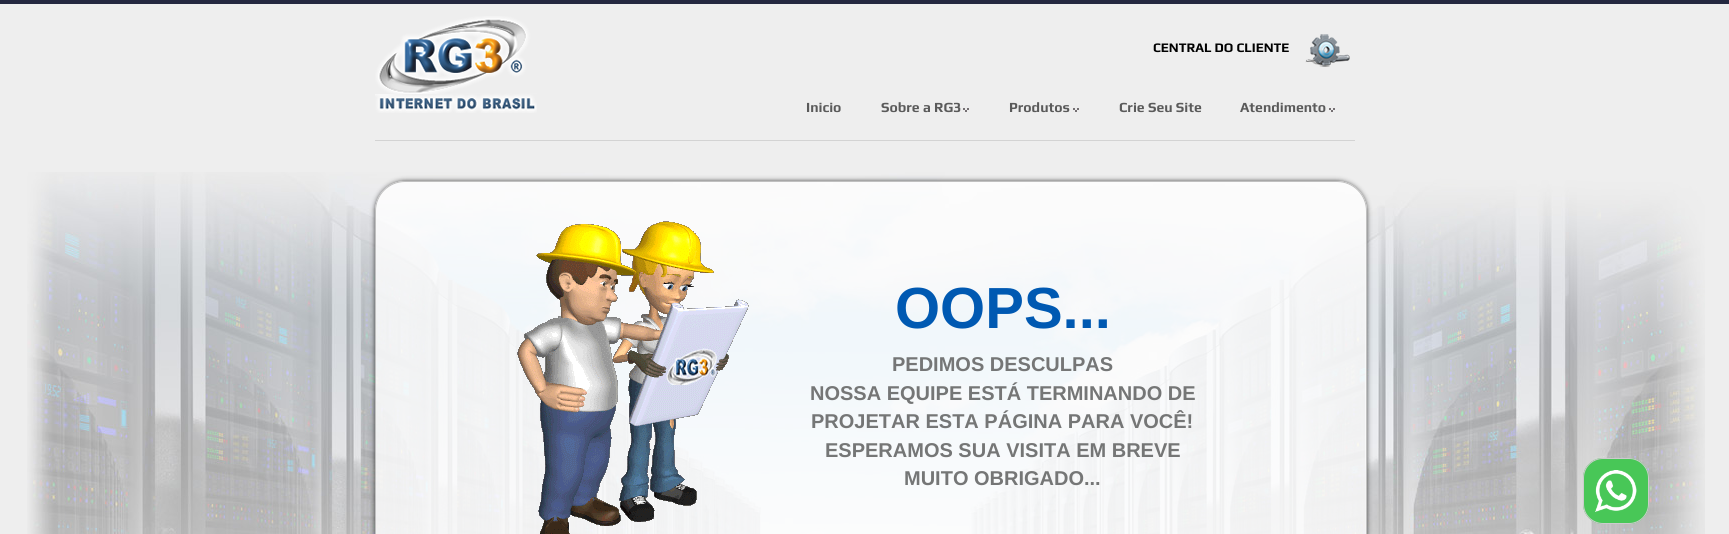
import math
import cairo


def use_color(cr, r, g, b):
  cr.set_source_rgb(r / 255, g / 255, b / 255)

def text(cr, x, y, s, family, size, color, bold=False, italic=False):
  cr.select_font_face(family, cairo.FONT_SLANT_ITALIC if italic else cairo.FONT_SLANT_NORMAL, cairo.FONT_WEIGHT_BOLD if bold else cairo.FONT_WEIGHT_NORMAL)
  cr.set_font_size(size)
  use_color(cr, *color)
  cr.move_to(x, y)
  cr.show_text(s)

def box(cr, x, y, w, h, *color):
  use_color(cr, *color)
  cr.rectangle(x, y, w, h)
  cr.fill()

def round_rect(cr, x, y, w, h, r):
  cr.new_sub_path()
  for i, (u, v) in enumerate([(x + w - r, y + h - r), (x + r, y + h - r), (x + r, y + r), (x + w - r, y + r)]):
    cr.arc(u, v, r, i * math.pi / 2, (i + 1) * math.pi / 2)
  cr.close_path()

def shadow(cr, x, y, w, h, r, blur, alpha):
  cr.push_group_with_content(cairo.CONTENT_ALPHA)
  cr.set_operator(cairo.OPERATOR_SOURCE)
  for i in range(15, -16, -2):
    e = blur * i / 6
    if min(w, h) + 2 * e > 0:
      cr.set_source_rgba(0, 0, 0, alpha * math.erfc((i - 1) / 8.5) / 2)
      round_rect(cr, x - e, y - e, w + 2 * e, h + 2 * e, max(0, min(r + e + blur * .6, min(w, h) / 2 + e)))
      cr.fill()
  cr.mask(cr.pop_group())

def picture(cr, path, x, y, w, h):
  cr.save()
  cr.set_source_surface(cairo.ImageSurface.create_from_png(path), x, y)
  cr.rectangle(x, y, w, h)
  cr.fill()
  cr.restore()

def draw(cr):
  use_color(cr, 238, 238, 238)
  cr.paint()
  picture(cr, "img_01.png", 27, 172, 1678, 362)
  box(cr, 0, 0, 1729, 4, 36, 40, 64)
  box(cr, 375, 140, 980, 1, 211, 211, 211)
  picture(cr, "img_02.png", 375, 16, 162, 97)
  picture(cr, "img_03.png", 1305, 34, 45, 33)
  picture(cr, "img_04.png", 963, 108, 6, 4)
  picture(cr, "img_04.png", 1073, 108, 6, 4)
  picture(cr, "img_04.png", 1329, 108, 6, 4)
  cr.save()
  cr.set_fill_rule(cairo.FILL_RULE_EVEN_ODD)
  cr.new_path()
  cr.move_to(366, 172)
  cr.line_to(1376, 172)
  cr.line_to(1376, 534)
  cr.line_to(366, 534)
  cr.close_path()
  cr.move_to(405, 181)
  cr.line_to(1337, 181)
  cr.curve_to(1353.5, 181, 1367, 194.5, 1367, 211)
  cr.line_to(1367, 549)
  cr.curve_to(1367, 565.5, 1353.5, 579, 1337, 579)
  cr.line_to(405, 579)
  cr.curve_to(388.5, 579, 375, 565.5, 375, 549)
  cr.line_to(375, 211)
  cr.curve_to(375, 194.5, 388.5, 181, 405, 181)
  cr.close_path()
  cr.clip()
  use_color(cr, 0, 0, 0)
  shadow(cr, 375, 181, 992, 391, 30, 2.5, 0.7)
  cr.restore()
  cr.set_source_rgba(1, 1, 1, 0.8)
  round_rect(cr, 375.5, 181.5, 991, 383, 29.5)
  cr.fill_preserve()
  use_color(cr, 192, 192, 192)
  cr.set_line_width(1)
  cr.stroke()
  picture(cr, "img_05.png", 517, 221, 232, 313)
  use_color(cr, 72, 199, 87)
  round_rect(cr, 1583, 458, 66, 66, 20)
  cr.fill()
  picture(cr, "img_06.png", 1595, 470, 42, 42)
  round_rect(cr, 1583.5, 458.5, 65, 65, 19.5)
  use_color(cr, 204, 204, 204)
  cr.stroke()
  text(cr, 1153, 52, "CENTRAL DO CLIENTE", "Play", 13.1, (0, 0, 0), bold=True)
  text(cr, 806, 112, "Inicio", "Play", 14, (90, 90, 90), bold=True)
  text(cr, 881, 112, "Sobre a RG3", "Play", 14, (90, 90, 90), bold=True)
  text(cr, 1009, 112, "Produtos", "Play", 14, (90, 90, 90), bold=True)
  text(cr, 1119, 112, "Crie Seu Site", "Play", 14, (90, 90, 90), bold=True)
  text(cr, 1240, 112, "Atendimento", "Play", 14, (90, 90, 90), bold=True)
  text(cr, 895, 328, "OOPS...", "Liberation Sans", 58, (0, 89, 178), bold=True)
  text(cr, 892, 371, "PEDIMOS DESCULPAS", "Liberation Sans", 20, (117, 118, 118), bold=True)
  text(cr, 810, 400, "NOSSA EQUIPE ESTÁ TERMINANDO DE", "Liberation Sans", 20, (117, 118, 118), bold=True)
  text(cr, 811, 428, "PROJETAR ESTA PÁGINA PARA VOCÊ!", "Liberation Sans", 20, (117, 118, 118), bold=True)
  text(cr, 825, 457, "ESPERAMOS SUA VISITA EM BREVE", "Liberation Sans", 20, (117, 118, 118), bold=True)
  text(cr, 904, 485, "MUITO OBRIGADO...", "Liberation Sans", 20, (117, 118, 118), bold=True)


surface = cairo.ImageSurface(cairo.FORMAT_RGB24, 1729, 534)
cr = cairo.Context(surface)
options = cairo.FontOptions()
options.set_hint_metrics(cairo.HINT_METRICS_OFF)
options.set_hint_style(cairo.HINT_STYLE_NONE)
cr.set_font_options(options)
cr.set_miter_limit(4)
draw(cr)
surface.write_to_png("out.png")
